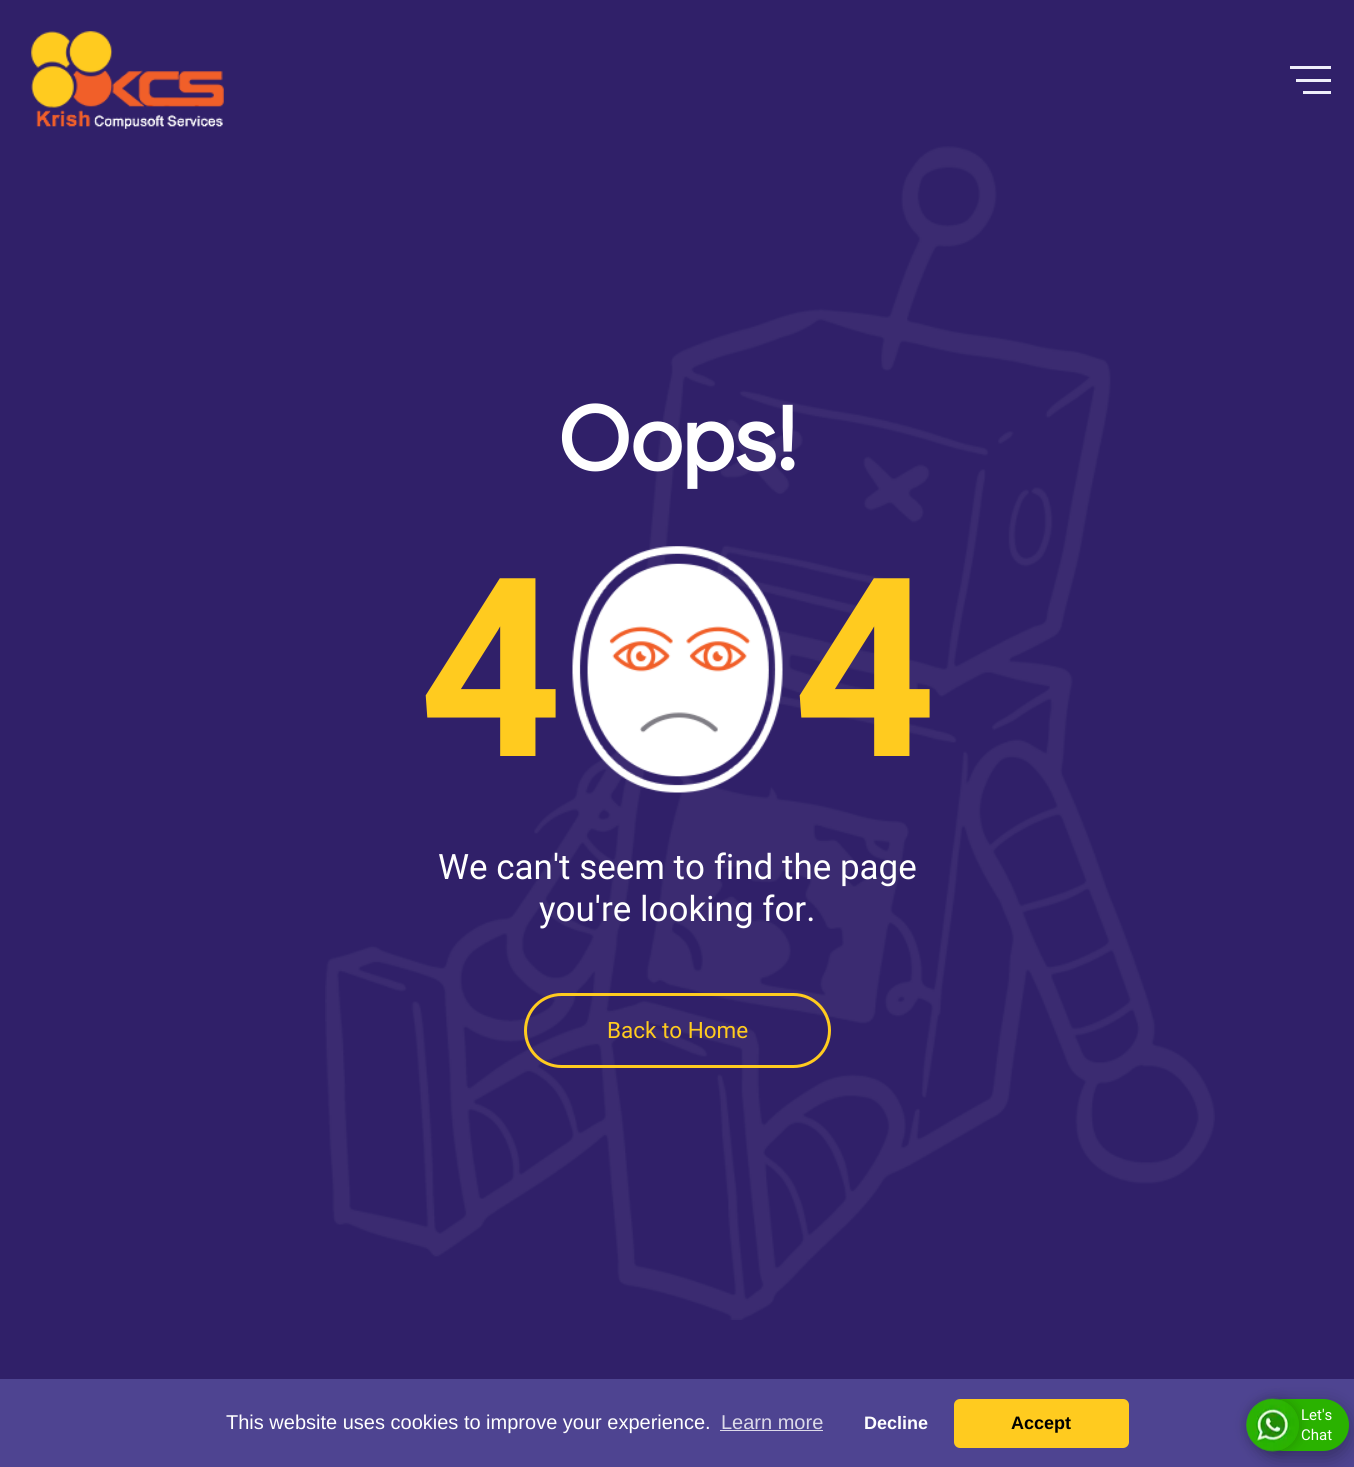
import math
import cairo


def use_color(cr, r, g, b):
  cr.set_source_rgb(r / 255, g / 255, b / 255)

def text(cr, x, y, s, family, size, color, bold=False, italic=False):
  cr.select_font_face(family, cairo.FONT_SLANT_ITALIC if italic else cairo.FONT_SLANT_NORMAL, cairo.FONT_WEIGHT_BOLD if bold else cairo.FONT_WEIGHT_NORMAL)
  cr.set_font_size(size)
  use_color(cr, *color)
  cr.move_to(x, y)
  cr.show_text(s)

def box(cr, x, y, w, h, *color):
  use_color(cr, *color)
  cr.rectangle(x, y, w, h)
  cr.fill()

def round_rect(cr, x, y, w, h, r):
  cr.new_sub_path()
  for i, (u, v) in enumerate([(x + w - r, y + h - r), (x + r, y + h - r), (x + r, y + r), (x + w - r, y + r)]):
    cr.arc(u, v, r, i * math.pi / 2, (i + 1) * math.pi / 2)
  cr.close_path()

def shadow(cr, x, y, w, h, r, blur, alpha):
  cr.push_group_with_content(cairo.CONTENT_ALPHA)
  cr.set_operator(cairo.OPERATOR_SOURCE)
  for i in range(15, -16, -2):
    e = blur * i / 6
    if min(w, h) + 2 * e > 0:
      cr.set_source_rgba(0, 0, 0, alpha * math.erfc((i - 1) / 8.5) / 2)
      round_rect(cr, x - e, y - e, w + 2 * e, h + 2 * e, max(0, min(r + e + blur * .6, min(w, h) / 2 + e)))
      cr.fill()
  cr.mask(cr.pop_group())

def picture(cr, path, x, y, w, h):
  cr.save()
  cr.set_source_surface(cairo.ImageSurface.create_from_png(path), x, y)
  cr.rectangle(x, y, w, h)
  cr.fill()
  cr.restore()

def draw(cr):
  use_color(cr, 48, 32, 105)
  cr.paint()
  picture(cr, "img_01.png", 31, 31, 193, 98)
  box(cr, 1296, 79, 35, 3, 238, 238, 250)
  box(cr, 1290, 66, 41, 3, 238, 238, 250)
  box(cr, 1303, 91, 28, 3, 238, 238, 250)
  picture(cr, "img_02.png", 325, 146, 890, 1174)
  picture(cr, "img_03.png", 572, 546, 211, 247)
  round_rect(cr, 525.5, 994.5, 304, 72, 36)
  use_color(cr, 255, 203, 31)
  cr.set_line_width(3)
  cr.stroke()
  box(cr, 0, 1379, 1354, 88, 78, 68, 145)
  box(cr, 720, 1430, 103, 1, 220, 218, 233)
  use_color(cr, 255, 203, 31)
  round_rect(cr, 954, 1399, 175, 49, 6)
  cr.fill()
  use_color(cr, 0, 0, 0)
  shadow(cr, 1258, 1405, 91, 53, 26.5, 9.5, 0.3)
  use_color(cr, 42, 178, 0)
  round_rect(cr, 1258, 1399, 91, 52, 26)
  cr.fill()
  cr.save()
  cr.set_fill_rule(cairo.FILL_RULE_EVEN_ODD)
  cr.new_path()
  cr.move_to(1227, 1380)
  cr.line_to(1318, 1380)
  cr.line_to(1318, 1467)
  cr.line_to(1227, 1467)
  cr.close_path()
  cr.move_to(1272, 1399)
  cr.line_to(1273, 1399)
  cr.curve_to(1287.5, 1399, 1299, 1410.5, 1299, 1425)
  cr.curve_to(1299, 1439.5, 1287.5, 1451, 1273, 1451)
  cr.line_to(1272, 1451)
  cr.curve_to(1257.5, 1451, 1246, 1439.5, 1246, 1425)
  cr.curve_to(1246, 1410.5, 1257.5, 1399, 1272, 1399)
  cr.close_path()
  cr.clip()
  use_color(cr, 0, 0, 0)
  shadow(cr, 1246, 1399, 53, 52, 26, 6, 0.2)
  cr.restore()
  picture(cr, "img_04.png", 1246, 1398, 49, 54)
  text(cr, 558, 470, "Oops!", "Google Sans", 87.5, (255, 255, 255), bold=True)
  text(cr, 419, 756, "4", "Roboto", 250, (255, 203, 31), bold=True)
  text(cr, 793, 756, "4", "Roboto", 250, (255, 203, 31), bold=True)
  text(cr, 438, 879, "We can't seem to find the page", "Roboto", 35, (255, 255, 255))
  text(cr, 539, 921, "you're looking for.", "Roboto", 35, (255, 255, 255))
  text(cr, 607, 1038, "Back to Home", "Roboto", 22.5, (255, 203, 31))
  text(cr, 226, 1429, "This website uses cookies to improve your experience.", "Liberation Sans", 20, (255, 255, 255))
  text(cr, 721, 1429, "Learn more", "Liberation Sans", 20, (220, 218, 233))
  text(cr, 864, 1429, "Decline", "Liberation Sans", 18, (255, 255, 255), bold=True)
  text(cr, 1011, 1429, "Accept", "Liberation Sans", 18, (0, 0, 0), bold=True)
  text(cr, 1301, 1420, "Let's", "Roboto", 15, (255, 255, 255))
  text(cr, 1301, 1440, "Chat", "Roboto", 15, (255, 255, 255))


surface = cairo.ImageSurface(cairo.FORMAT_RGB24, 1354, 1467)
cr = cairo.Context(surface)
options = cairo.FontOptions()
options.set_hint_metrics(cairo.HINT_METRICS_OFF)
options.set_hint_style(cairo.HINT_STYLE_NONE)
cr.set_font_options(options)
cr.set_miter_limit(4)
draw(cr)
surface.write_to_png("out.png")
